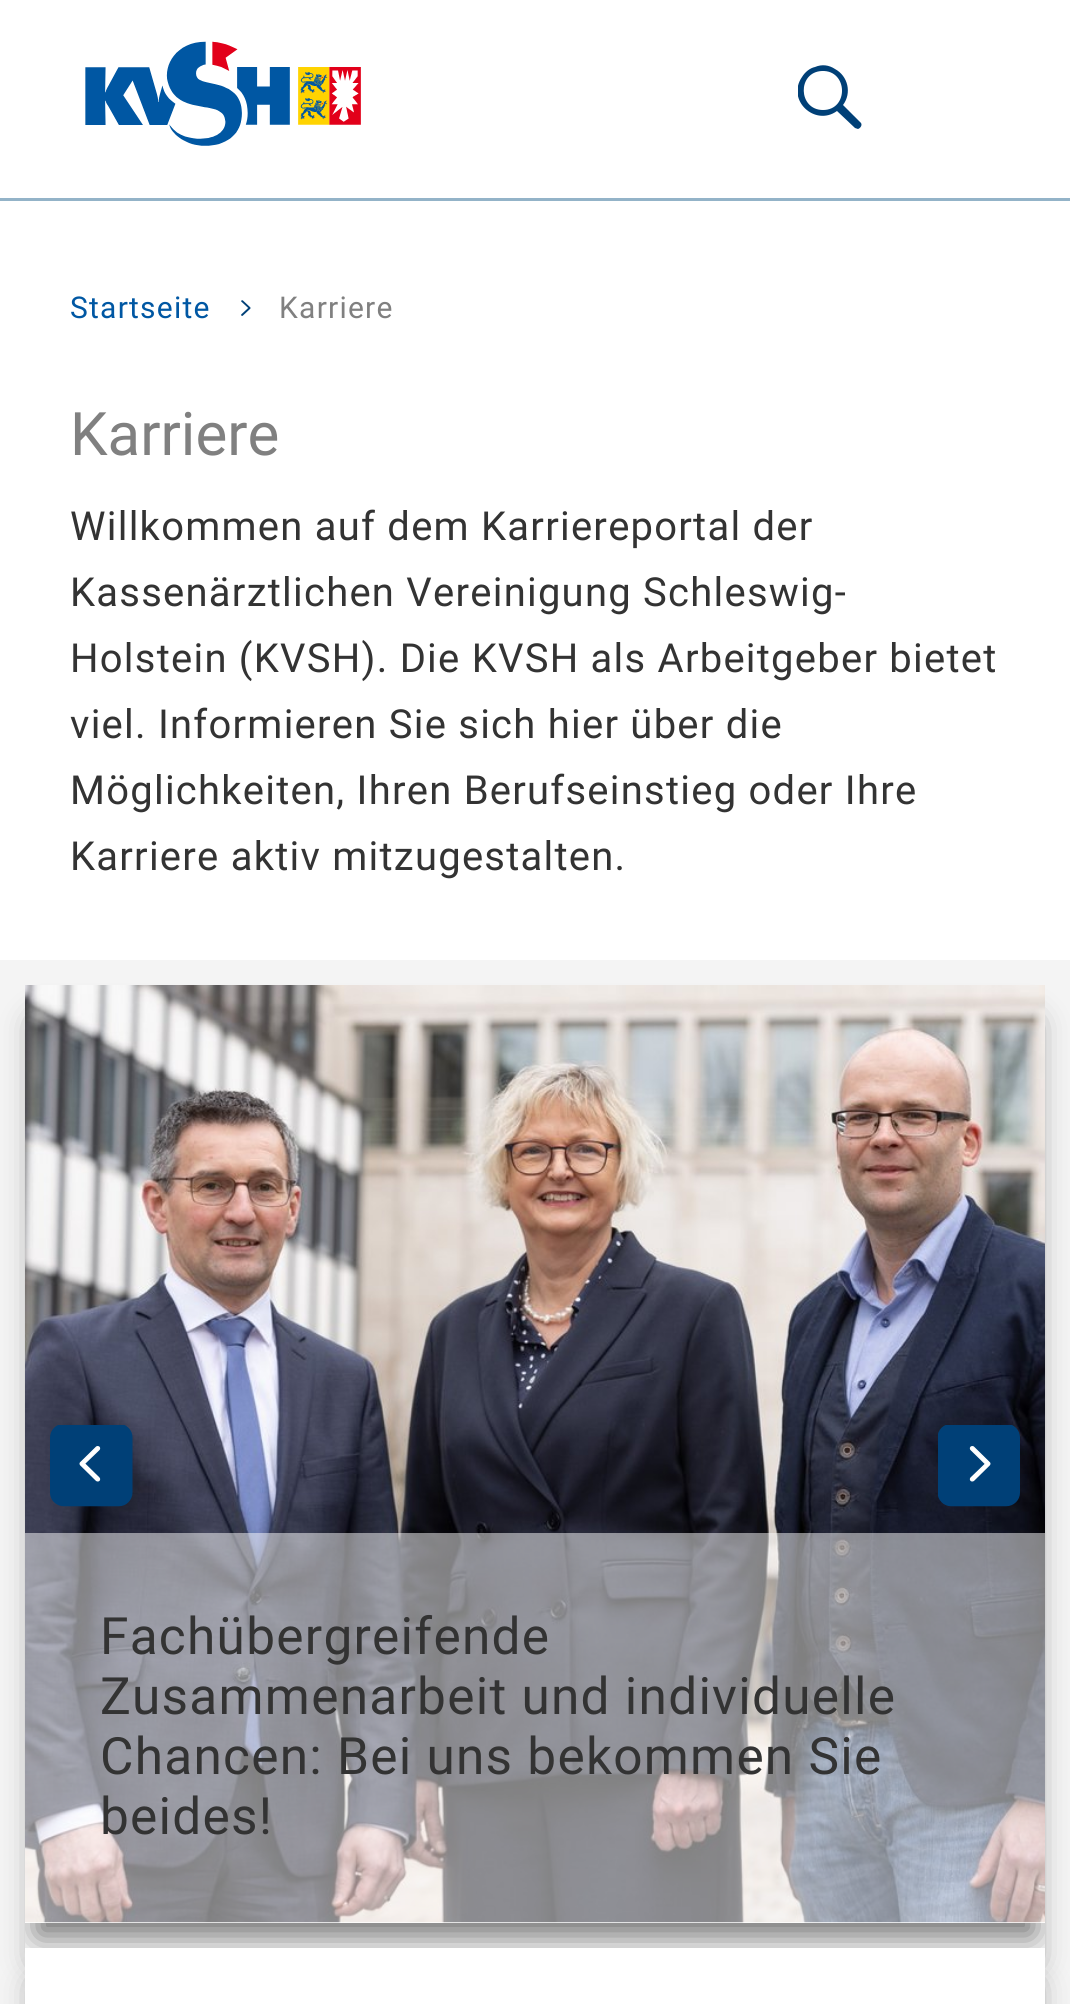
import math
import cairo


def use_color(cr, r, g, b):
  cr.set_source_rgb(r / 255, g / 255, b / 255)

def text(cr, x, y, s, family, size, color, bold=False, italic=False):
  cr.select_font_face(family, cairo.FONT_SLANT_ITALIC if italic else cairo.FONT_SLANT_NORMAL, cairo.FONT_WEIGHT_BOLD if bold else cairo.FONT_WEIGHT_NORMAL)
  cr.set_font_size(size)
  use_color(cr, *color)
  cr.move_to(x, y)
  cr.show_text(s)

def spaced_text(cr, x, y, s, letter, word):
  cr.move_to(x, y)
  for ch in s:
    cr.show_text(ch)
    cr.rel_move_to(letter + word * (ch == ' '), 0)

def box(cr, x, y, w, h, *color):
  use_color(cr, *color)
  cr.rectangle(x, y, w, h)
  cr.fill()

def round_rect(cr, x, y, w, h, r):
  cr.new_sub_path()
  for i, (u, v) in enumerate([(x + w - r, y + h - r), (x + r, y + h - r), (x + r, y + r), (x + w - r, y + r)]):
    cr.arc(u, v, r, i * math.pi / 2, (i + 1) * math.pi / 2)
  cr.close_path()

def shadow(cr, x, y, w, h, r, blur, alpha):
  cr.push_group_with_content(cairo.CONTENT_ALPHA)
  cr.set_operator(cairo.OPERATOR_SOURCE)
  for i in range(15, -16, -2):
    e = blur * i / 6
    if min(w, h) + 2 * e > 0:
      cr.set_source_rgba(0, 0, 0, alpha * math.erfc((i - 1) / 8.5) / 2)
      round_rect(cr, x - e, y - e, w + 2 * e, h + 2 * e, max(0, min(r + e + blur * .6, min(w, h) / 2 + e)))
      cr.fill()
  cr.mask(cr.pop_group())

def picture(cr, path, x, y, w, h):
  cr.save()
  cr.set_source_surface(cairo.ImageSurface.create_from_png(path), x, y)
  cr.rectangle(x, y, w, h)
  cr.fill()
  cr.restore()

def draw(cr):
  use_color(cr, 255, 255, 255)
  cr.paint()
  box(cr, 0, 198, 1070, 3, 147, 179, 200)
  picture(cr, "img_01.png", 85, 41, 276, 105)
  cr.save()
  cr.rectangle(798, 65, 65, 65)
  cr.clip()
  use_color(cr, 0, 64, 119)
  cr.new_path()
  cr.move_to(860, 122)
  cr.line_to(843, 105)
  cr.curve_to(852, 93, 848, 76, 835, 69)
  cr.curve_to(829, 65, 822, 64, 815, 67)
  cr.curve_to(810, 68, 805, 72, 802, 77)
  cr.curve_to(786, 100, 815, 127, 837, 111)
  cr.line_to(855, 128)
  cr.line_to(858, 129)
  cr.curve_to(861, 128, 863, 124, 860, 122)
  cr.close_path()
  cr.move_to(823, 110)
  cr.curve_to(798, 110, 797, 72, 822, 71)
  cr.curve_to(848, 70, 849, 110, 823, 110)
  cr.close_path()
  cr.fill()
  cr.restore()
  picture(cr, "img_02.png", 241, 300, 10, 16)
  box(cr, 0, 960, 1070, 1044, 244, 244, 244)
  cr.save()
  cr.set_fill_rule(cairo.FILL_RULE_EVEN_ODD)
  cr.new_path()
  cr.move_to(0, 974)
  cr.line_to(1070, 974)
  cr.line_to(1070, 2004)
  cr.line_to(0, 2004)
  cr.close_path()
  cr.move_to(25, 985)
  cr.line_to(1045, 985)
  cr.line_to(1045, 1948)
  cr.line_to(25, 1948)
  cr.close_path()
  cr.clip()
  use_color(cr, 0, 0, 0)
  shadow(cr, 38, 1023, 995, 937, 0, 16, 0.55)
  cr.restore()
  cr.save()
  cr.rectangle(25, 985, 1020, 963)
  cr.clip()
  use_color(cr, 0, 0, 0)
  shadow(cr, 38, 1023, 995, 912, 0, 16, 0.55)
  cr.restore()
  box(cr, 25, 1922, 1020, 1, 255, 255, 255)
  picture(cr, "img_05.png", 25, 985, 1020, 938)
  picture(cr, "img_03.png", 50, 1425, 83, 82)
  picture(cr, "img_04.png", 938, 1425, 82, 82)
  cr.set_source_rgba(1, 1, 1, 0.5)
  cr.rectangle(25, 1533, 1020, 390)
  cr.fill()
  use_color(cr, 0, 0, 0)
  shadow(cr, 38, 1985, 995, 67, 0, 16, 0.55)
  box(cr, 25, 1948, 1020, 56, 255, 255, 255)
  cr.select_font_face("Roboto")
  cr.set_font_size(30)
  use_color(cr, 0, 87, 163)
  spaced_text(cr, 70, 318, "Startseite", 1.25, 0)
  use_color(cr, 128, 128, 128)
  spaced_text(cr, 279, 318, "Karriere", 1.25, 0)
  text(cr, 70, 455, "Karriere", "Roboto", 60, (128, 128, 128))
  cr.set_font_size(40)
  use_color(cr, 51, 51, 51)
  spaced_text(cr, 70, 540, "Willkommen auf dem Karriereportal der", 1.25, 0)
  spaced_text(cr, 70, 606, "Kassenärztlichen Vereinigung Schleswig-", 1.25, 0)
  spaced_text(cr, 70, 672, "Holstein (KVSH). Die KVSH als Arbeitgeber bietet", 1.25, 0)
  spaced_text(cr, 70, 738, "viel. Informieren Sie sich hier über die", 1.25, 0)
  spaced_text(cr, 70, 804, "Möglichkeiten, Ihren Berufseinstieg oder Ihre", 1.25, 0)
  spaced_text(cr, 70, 870, "Karriere aktiv mitzugestalten.", 1.25, 0)
  cr.set_font_size(51.4)
  spaced_text(cr, 100, 1654, "Fachübergreifende", 1.25, 0)
  spaced_text(cr, 100, 1714, "Zusammenarbeit und individuelle", 1.25, 0)
  spaced_text(cr, 100, 1774, "Chancen: Bei uns bekommen Sie", 1.25, 0)
  spaced_text(cr, 100, 1834, "beides!", 1.25, 0)


surface = cairo.ImageSurface(cairo.FORMAT_RGB24, 1070, 2004)
cr = cairo.Context(surface)
options = cairo.FontOptions()
options.set_hint_metrics(cairo.HINT_METRICS_OFF)
options.set_hint_style(cairo.HINT_STYLE_NONE)
cr.set_font_options(options)
cr.set_miter_limit(4)
draw(cr)
surface.write_to_png("out.png")
